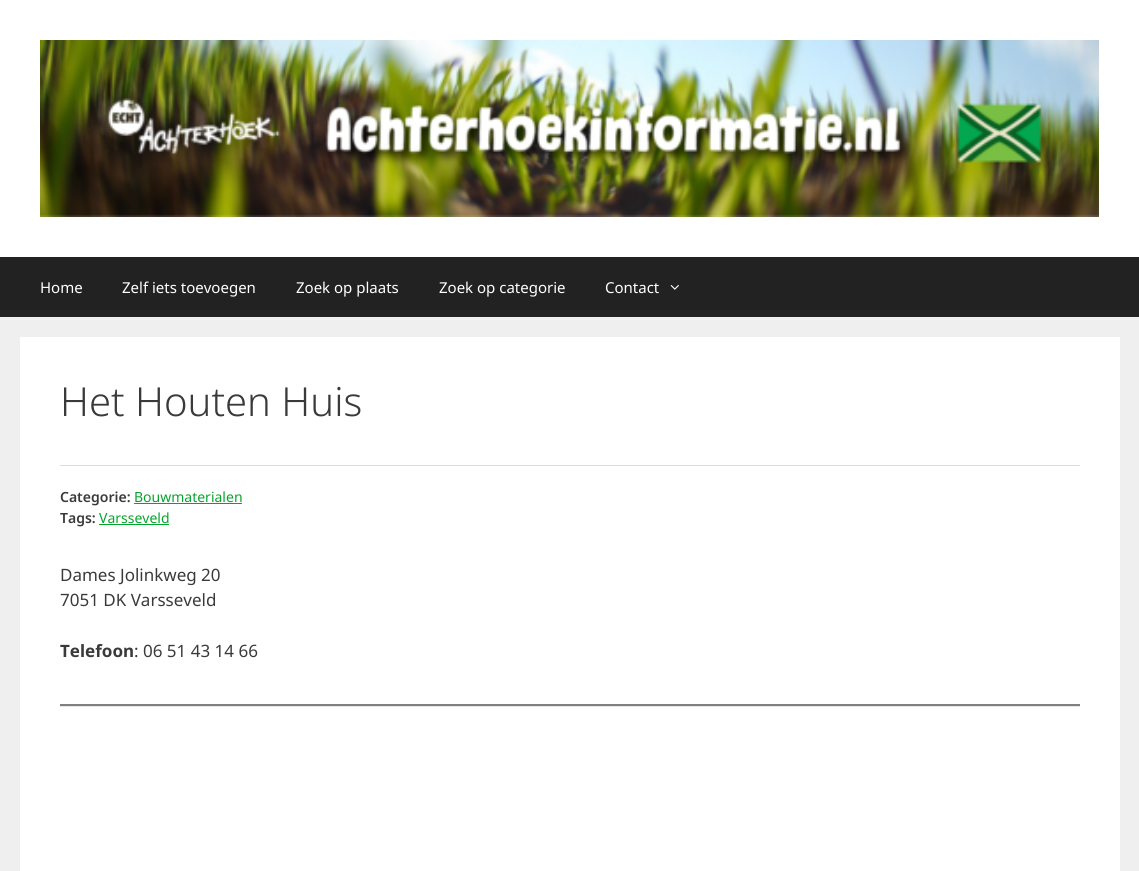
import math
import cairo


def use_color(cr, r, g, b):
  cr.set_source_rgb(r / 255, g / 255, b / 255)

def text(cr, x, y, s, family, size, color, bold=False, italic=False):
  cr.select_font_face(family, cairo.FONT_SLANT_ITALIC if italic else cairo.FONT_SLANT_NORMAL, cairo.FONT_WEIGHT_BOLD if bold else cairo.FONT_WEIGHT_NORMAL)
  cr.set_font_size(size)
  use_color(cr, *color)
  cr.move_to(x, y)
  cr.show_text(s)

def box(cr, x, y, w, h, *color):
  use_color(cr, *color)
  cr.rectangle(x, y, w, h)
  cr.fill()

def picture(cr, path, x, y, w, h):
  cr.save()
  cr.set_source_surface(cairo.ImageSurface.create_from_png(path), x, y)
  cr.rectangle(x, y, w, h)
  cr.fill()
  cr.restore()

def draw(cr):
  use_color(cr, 239, 239, 239)
  cr.paint()
  box(cr, 0, 0, 1139, 257, 255, 255, 255)
  picture(cr, "img_01.png", 40, 40, 1059, 177)
  box(cr, 0, 257, 1139, 60, 34, 34, 34)
  picture(cr, "img_02.png", 670, 285, 9, 5)
  box(cr, 20, 337, 1100, 534, 255, 255, 255)
  box(cr, 60, 465, 1020, 1, 221, 221, 221)
  box(cr, 134, 503, 108, 1, 5, 165, 45)
  box(cr, 99, 524, 70, 1, 5, 165, 45)
  box(cr, 60, 706, 1020, 1, 230, 230, 230)
  box(cr, 60, 704, 1020, 2, 128, 128, 128)
  text(cr, 40, 293, "Home", "Noto Sans", 15, (255, 255, 255))
  text(cr, 122, 293, "Zelf iets toevoegen", "Noto Sans", 15, (255, 255, 255))
  text(cr, 296, 293, "Zoek op plaats", "Noto Sans", 15, (255, 255, 255))
  text(cr, 439, 293, "Zoek op categorie", "Noto Sans", 15, (255, 255, 255))
  text(cr, 605, 293, "Contact", "Noto Sans", 15, (255, 255, 255))
  text(cr, 60, 416, "Het Houten Huis", "Noto Sans Light", 40, (58, 58, 58))
  text(cr, 60, 502, "Categorie:", "Noto Sans SemiBold", 14, (58, 58, 58))
  text(cr, 134, 502, "Bouwmaterialen", "Noto Sans", 14, (5, 165, 45))
  text(cr, 60, 523, "Tags:", "Noto Sans SemiBold", 14, (58, 58, 58))
  text(cr, 99, 523, "Varsseveld", "Noto Sans", 14, (5, 165, 45))
  text(cr, 60, 581, "Dames Jolinkweg 20", "Noto Sans", 17, (58, 58, 58))
  text(cr, 60, 606, "7051 DK Varsseveld", "Noto Sans", 17, (58, 58, 58))
  text(cr, 60, 657, "Telefoon", "Noto Sans", 17, (58, 58, 58), bold=True)
  text(cr, 134, 657, ": 06 51 43 14 66", "Noto Sans", 17, (58, 58, 58))


surface = cairo.ImageSurface(cairo.FORMAT_RGB24, 1139, 871)
cr = cairo.Context(surface)
options = cairo.FontOptions()
options.set_hint_metrics(cairo.HINT_METRICS_OFF)
options.set_hint_style(cairo.HINT_STYLE_NONE)
cr.set_font_options(options)
cr.set_miter_limit(4)
draw(cr)
surface.write_to_png("out.png")
